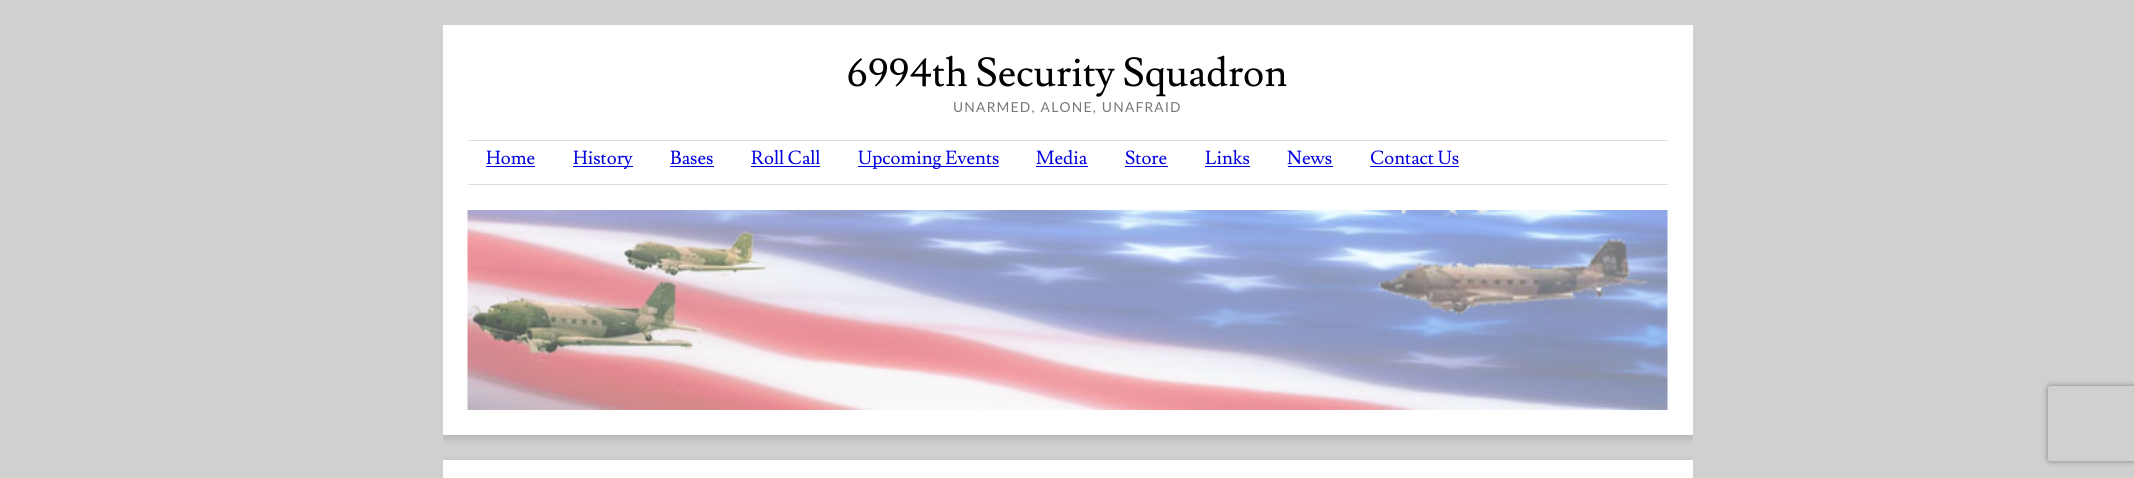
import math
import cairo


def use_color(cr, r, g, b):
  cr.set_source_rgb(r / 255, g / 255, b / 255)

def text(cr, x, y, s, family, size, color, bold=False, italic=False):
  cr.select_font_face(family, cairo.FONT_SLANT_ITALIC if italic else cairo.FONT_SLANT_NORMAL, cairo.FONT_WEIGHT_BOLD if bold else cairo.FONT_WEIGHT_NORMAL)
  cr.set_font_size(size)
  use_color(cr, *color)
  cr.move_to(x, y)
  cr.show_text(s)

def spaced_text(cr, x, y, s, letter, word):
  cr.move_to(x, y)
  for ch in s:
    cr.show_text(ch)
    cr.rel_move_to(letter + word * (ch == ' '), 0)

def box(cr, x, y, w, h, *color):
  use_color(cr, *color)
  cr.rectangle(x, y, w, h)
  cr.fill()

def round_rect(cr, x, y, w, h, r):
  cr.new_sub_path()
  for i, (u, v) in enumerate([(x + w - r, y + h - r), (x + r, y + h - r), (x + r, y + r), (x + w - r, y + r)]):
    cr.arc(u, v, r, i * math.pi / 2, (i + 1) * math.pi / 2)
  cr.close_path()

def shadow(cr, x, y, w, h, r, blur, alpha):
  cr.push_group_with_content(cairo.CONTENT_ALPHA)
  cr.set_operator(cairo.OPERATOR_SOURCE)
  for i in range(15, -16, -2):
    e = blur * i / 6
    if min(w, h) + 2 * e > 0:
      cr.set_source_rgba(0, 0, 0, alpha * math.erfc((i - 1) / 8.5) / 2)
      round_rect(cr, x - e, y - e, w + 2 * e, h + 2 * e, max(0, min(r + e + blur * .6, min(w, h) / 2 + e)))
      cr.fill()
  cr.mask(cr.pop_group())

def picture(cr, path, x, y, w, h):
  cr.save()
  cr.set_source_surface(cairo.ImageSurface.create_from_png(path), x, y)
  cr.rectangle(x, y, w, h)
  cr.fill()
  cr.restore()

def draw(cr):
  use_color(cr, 208, 208, 208)
  cr.paint()
  cr.save()
  cr.rectangle(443, 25, 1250, 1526)
  cr.clip()
  use_color(cr, 100, 100, 100)
  shadow(cr, 443, 28, 1250, 410, 0, 4, 0.3)
  cr.restore()
  box(cr, 443, 25, 1250, 410, 255, 255, 255)
  box(cr, 468, 140, 1200, 1, 221, 221, 221)
  box(cr, 468, 184, 1200, 1, 221, 221, 221)
  box(cr, 486, 166, 49, 1, 1, 1, 223)
  box(cr, 573, 166, 60, 1, 1, 1, 223)
  box(cr, 670, 166, 44, 1, 1, 1, 223)
  box(cr, 751, 166, 69, 1, 1, 1, 223)
  box(cr, 858, 166, 141, 1, 1, 1, 223)
  box(cr, 1036, 166, 52, 1, 1, 1, 223)
  box(cr, 1125, 166, 43, 1, 1, 1, 223)
  box(cr, 1205, 166, 45, 1, 1, 1, 223)
  box(cr, 1288, 166, 45, 1, 1, 1, 223)
  box(cr, 1370, 166, 89, 1, 1, 1, 223)
  picture(cr, "img_01.png", 467, 210, 1201, 200)
  cr.save()
  cr.rectangle(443, 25, 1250, 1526)
  cr.clip()
  use_color(cr, 100, 100, 100)
  shadow(cr, 443, 463, 1250, 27, 0, 4, 0.3)
  cr.restore()
  box(cr, 443, 460, 1250, 18, 255, 255, 255)
  cr.save()
  cr.set_fill_rule(cairo.FILL_RULE_EVEN_ODD)
  cr.new_path()
  cr.move_to(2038, 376)
  cr.line_to(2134, 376)
  cr.line_to(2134, 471)
  cr.line_to(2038, 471)
  cr.close_path()
  cr.move_to(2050.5, 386)
  cr.line_to(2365.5, 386)
  cr.curve_to(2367, 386, 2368, 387, 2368, 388.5)
  cr.line_to(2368, 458.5)
  cr.curve_to(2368, 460, 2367, 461, 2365.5, 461)
  cr.line_to(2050.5, 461)
  cr.curve_to(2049, 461, 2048, 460, 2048, 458.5)
  cr.line_to(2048, 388.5)
  cr.curve_to(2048, 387, 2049, 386, 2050.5, 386)
  cr.close_path()
  cr.clip()
  use_color(cr, 128, 128, 128)
  shadow(cr, 2048, 386, 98, 75, 2.5, 3, 1)
  cr.restore()
  text(cr, 847, 86, "6994th Security Squadron", "Lusitana", 40, (0, 0, 0))
  cr.select_font_face("Lato")
  cr.set_font_size(13.75)
  use_color(cr, 119, 119, 119)
  spaced_text(cr, 953, 112, "UNARMED, ALONE, UNAFRAID", 1.25, 0)
  text(cr, 486, 164, "Home", "Lusitana", 18.75, (1, 1, 223))
  text(cr, 573, 164, "History", "Lusitana", 18.75, (1, 1, 223))
  text(cr, 670, 164, "Bases", "Lusitana", 18.75, (1, 1, 223))
  text(cr, 751, 164, "Roll Call", "Lusitana", 18.75, (1, 1, 223))
  text(cr, 858, 164, "Upcoming Events", "Lusitana", 18.75, (1, 1, 223))
  text(cr, 1036, 164, "Media", "Lusitana", 18.75, (1, 1, 223))
  text(cr, 1125, 164, "Store", "Lusitana", 18.75, (1, 1, 223))
  text(cr, 1205, 164, "Links", "Lusitana", 18.75, (1, 1, 223))
  text(cr, 1287, 164, "News", "Lusitana", 18.75, (1, 1, 223))
  text(cr, 1370, 164, "Contact Us", "Lusitana", 18.75, (1, 1, 223))


surface = cairo.ImageSurface(cairo.FORMAT_RGB24, 2134, 478)
cr = cairo.Context(surface)
options = cairo.FontOptions()
options.set_hint_metrics(cairo.HINT_METRICS_OFF)
options.set_hint_style(cairo.HINT_STYLE_NONE)
cr.set_font_options(options)
cr.set_miter_limit(4)
draw(cr)
surface.write_to_png("out.png")
